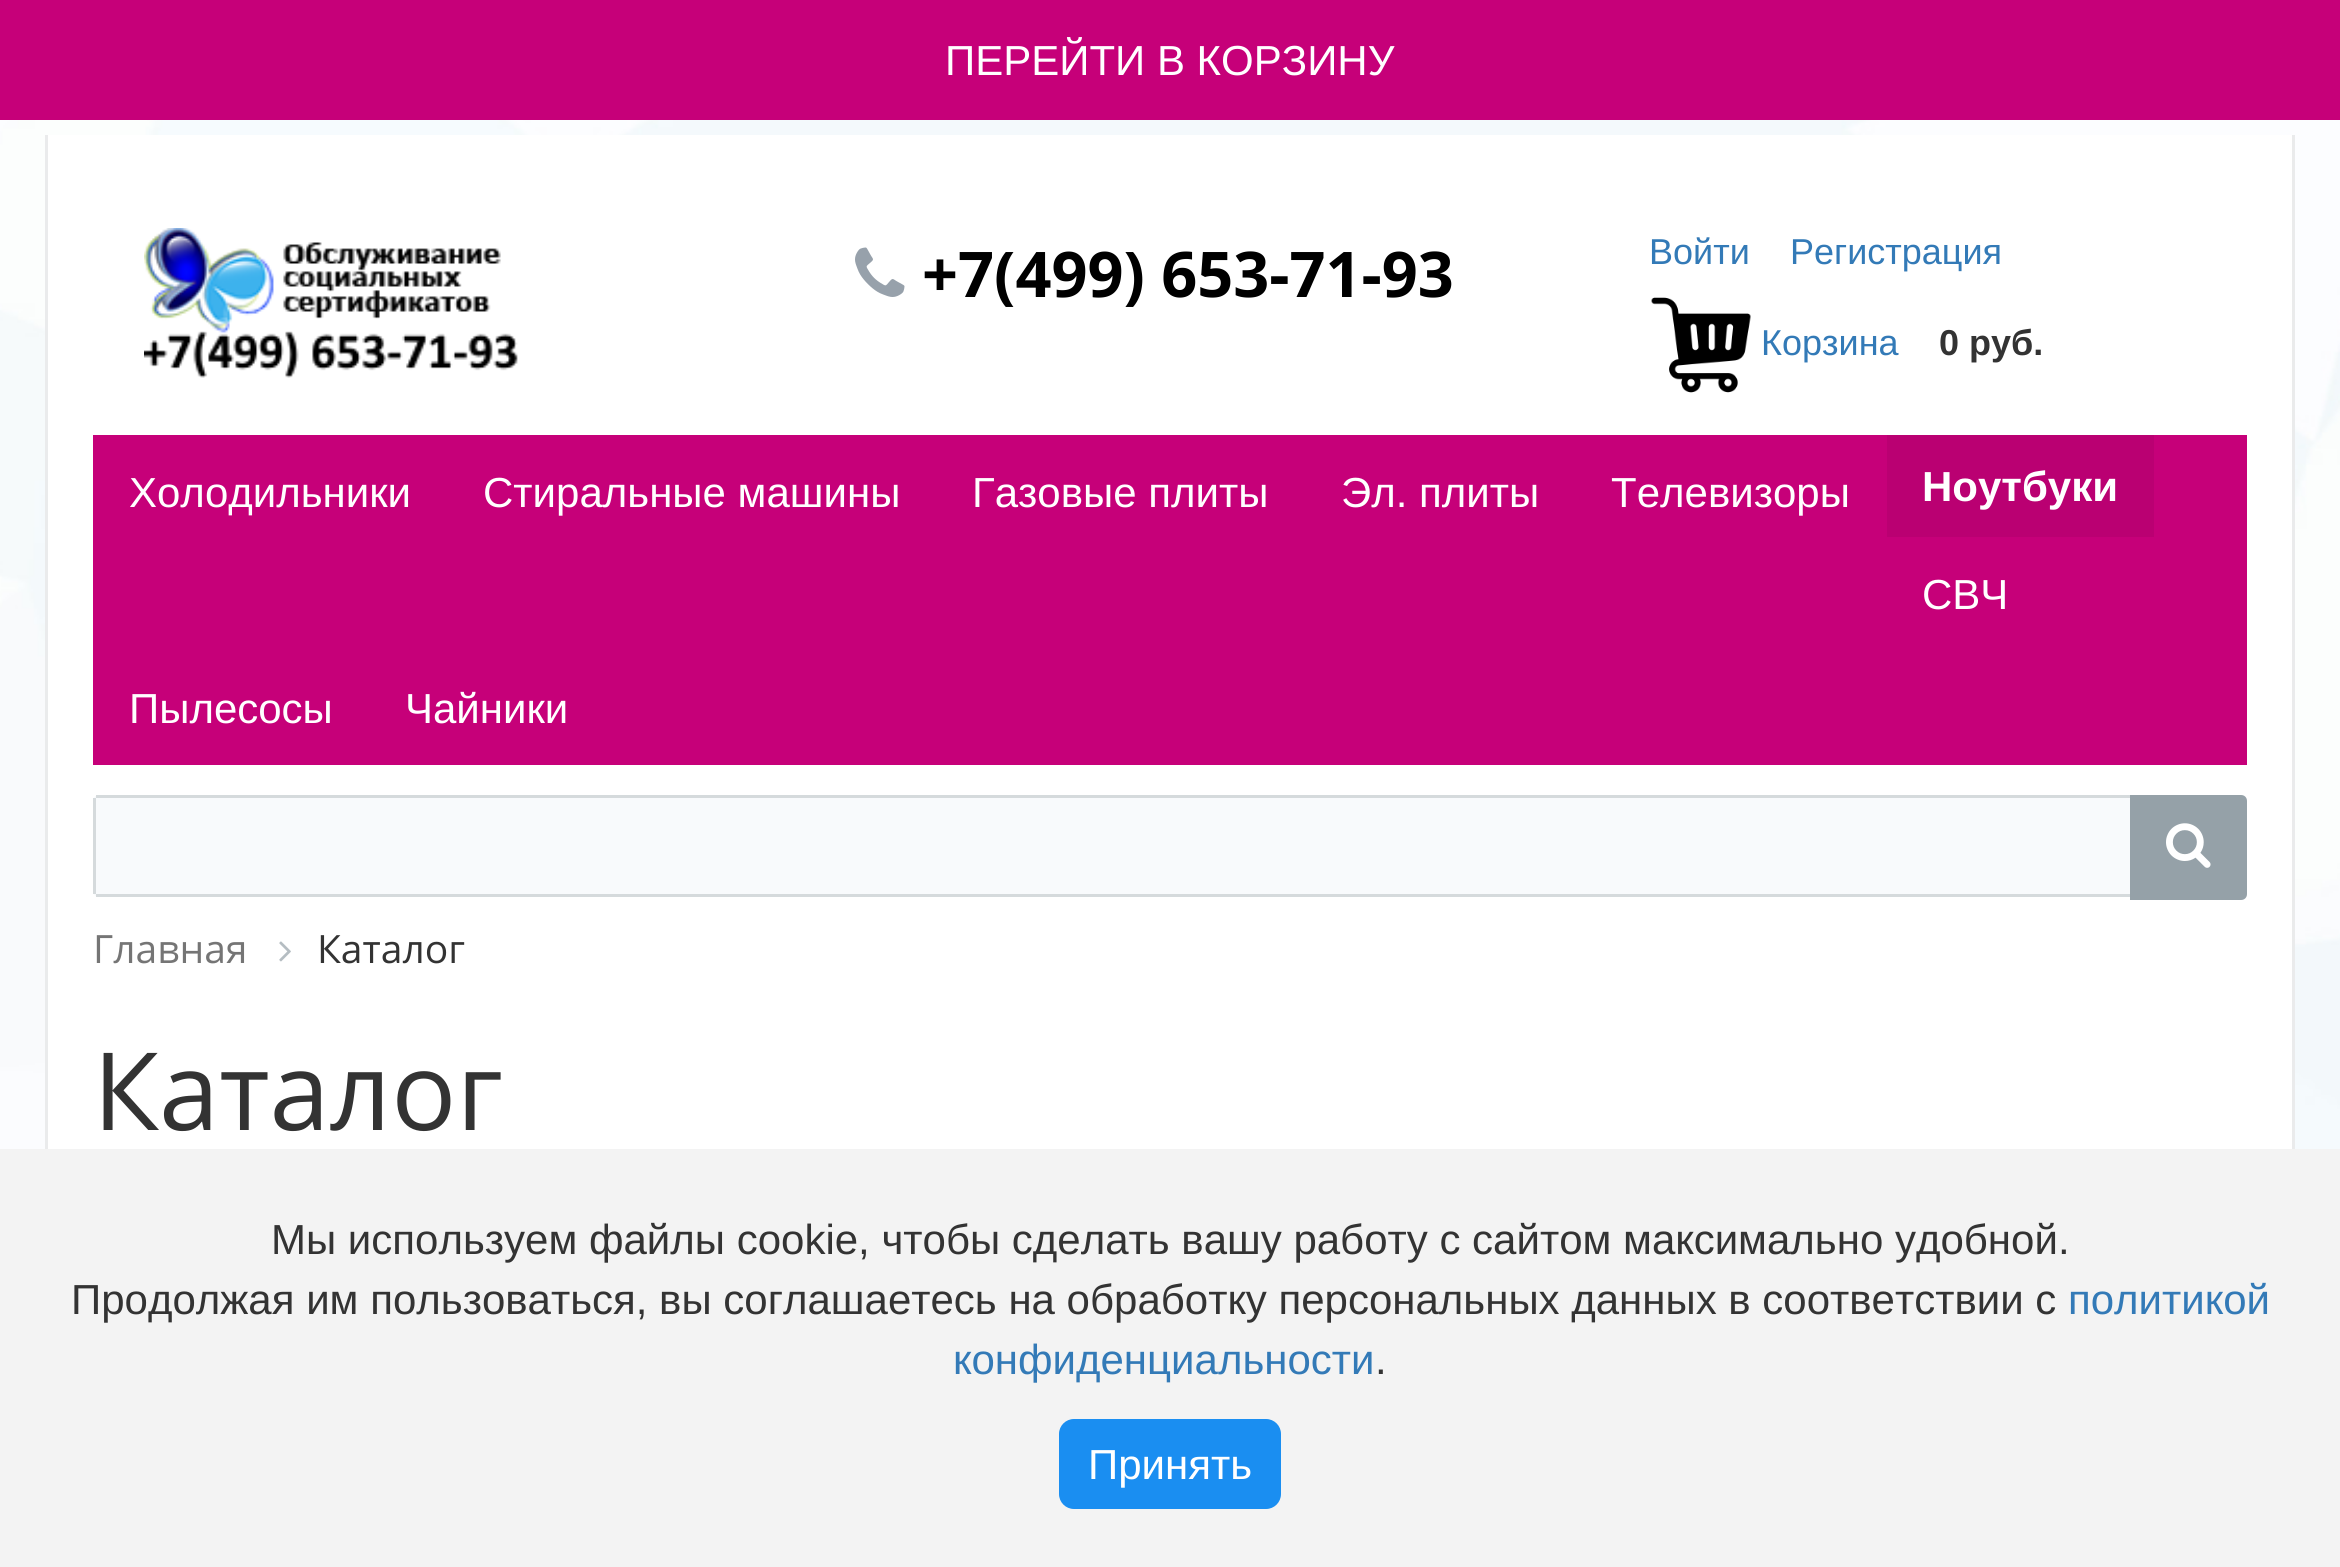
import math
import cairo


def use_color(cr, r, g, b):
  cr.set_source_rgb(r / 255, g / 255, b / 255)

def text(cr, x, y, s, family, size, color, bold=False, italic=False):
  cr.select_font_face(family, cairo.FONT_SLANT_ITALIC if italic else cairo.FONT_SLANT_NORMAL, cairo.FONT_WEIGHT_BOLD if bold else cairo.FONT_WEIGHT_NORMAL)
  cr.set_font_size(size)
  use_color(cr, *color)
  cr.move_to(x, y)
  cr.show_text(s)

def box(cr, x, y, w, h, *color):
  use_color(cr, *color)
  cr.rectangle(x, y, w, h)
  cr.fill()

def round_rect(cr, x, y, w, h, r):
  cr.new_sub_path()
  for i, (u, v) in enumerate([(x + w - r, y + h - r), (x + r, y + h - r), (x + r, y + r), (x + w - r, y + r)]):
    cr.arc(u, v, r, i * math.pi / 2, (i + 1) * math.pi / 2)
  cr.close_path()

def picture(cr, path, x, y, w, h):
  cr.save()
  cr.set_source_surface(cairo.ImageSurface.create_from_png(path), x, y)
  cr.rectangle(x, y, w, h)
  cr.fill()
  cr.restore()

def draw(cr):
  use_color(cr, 255, 255, 255)
  cr.paint()
  picture(cr, "img_01.png", 0, 120, 2340, 1029)
  box(cr, 0, 0, 2340, 120, 198, 0, 121)
  box(cr, 48, 135, 2244, 1014, 255, 255, 255)
  box(cr, 2292, 135, 3, 1014, 234, 235, 236)
  box(cr, 45, 135, 3, 1014, 234, 235, 236)
  picture(cr, "img_02.png", 144, 228, 374, 150)
  picture(cr, "img_03.png", 855, 247, 50, 50)
  picture(cr, "img_04.png", 1651, 297, 100, 96)
  box(cr, 93, 435, 2154, 330, 198, 0, 121)
  box(cr, 1887, 435, 267, 102, 186, 0, 114)
  use_color(cr, 248, 250, 252)
  cr.new_path()
  cr.move_to(99, 795)
  cr.line_to(2130, 795)
  cr.line_to(2130, 897)
  cr.line_to(99, 897)
  cr.curve_to(95.5, 897, 93, 894.5, 93, 891)
  cr.line_to(93, 801)
  cr.curve_to(93, 797.5, 95.5, 795, 99, 795)
  cr.close_path()
  cr.fill()
  box(cr, 96, 795, 2034, 3, 213, 218, 220)
  box(cr, 96, 894, 2034, 3, 213, 218, 220)
  box(cr, 93, 798, 3, 96, 213, 218, 220)
  use_color(cr, 149, 161, 168)
  cr.new_path()
  cr.move_to(2130, 795)
  cr.line_to(2241, 795)
  cr.curve_to(2244.5, 795, 2247, 797.5, 2247, 801)
  cr.line_to(2247, 894)
  cr.curve_to(2247, 897.5, 2244.5, 900, 2241, 900)
  cr.line_to(2130, 900)
  cr.close_path()
  cr.fill()
  picture(cr, "img_05.png", 2166, 823, 45, 45)
  picture(cr, "img_06.png", 279, 941, 12, 21)
  box(cr, 0, 1149, 2340, 418, 243, 243, 243)
  use_color(cr, 26, 142, 241)
  round_rect(cr, 1059, 1419, 222, 90, 15)
  cr.fill()
  text(cr, 945, 75, "ПЕРЕЙТИ В КОРЗИНУ", "Liberation Sans", 42, (255, 255, 255))
  text(cr, 922, 297, "+7(499) 653-71-93", "Open Sans", 63, (0, 0, 0), bold=True)
  text(cr, 1649, 264, "Войти", "Liberation Sans", 36, (51, 122, 183))
  text(cr, 1790, 264, "Регистрация", "Liberation Sans", 36, (51, 122, 183))
  text(cr, 1761, 355, "Корзина", "Liberation Sans", 36, (51, 122, 183))
  text(cr, 1939, 355, "0 руб.", "Liberation Sans", 36, (51, 51, 51), bold=True)
  text(cr, 129, 507, "Холодильники", "Liberation Sans", 42, (255, 255, 255))
  text(cr, 483, 507, "Стиральные машины", "Liberation Sans", 42, (255, 255, 255))
  text(cr, 972, 507, "Газовые плиты", "Liberation Sans", 42, (255, 255, 255))
  text(cr, 1341, 507, "Эл. плиты", "Liberation Sans", 42, (255, 255, 255))
  text(cr, 1611, 507, "Телевизоры", "Liberation Sans", 42, (255, 255, 255))
  text(cr, 1922, 501, "Ноутбуки", "Liberation Sans", 42, (255, 255, 255), bold=True)
  text(cr, 1922, 609, "СВЧ", "Liberation Sans", 42, (255, 255, 255))
  text(cr, 129, 723, "Пылесосы", "Liberation Sans", 42, (255, 255, 255))
  text(cr, 405, 723, "Чайники", "Liberation Sans", 42, (255, 255, 255))
  text(cr, 93, 963, "Главная", "Open Sans", 39, (117, 117, 117))
  text(cr, 317, 963, "Каталог", "Open Sans", 39, (51, 51, 51))
  text(cr, 93, 1130, "Каталог", "Open Sans", 108, (51, 51, 51))
  text(cr, 271, 1254, "Мы используем файлы cookie, чтобы сделать вашу работу с сайтом максимально удобной.", "Liberation Sans", 42, (51, 51, 51))
  text(cr, 71, 1314, "Продолжая им пользоваться, вы соглашаетесь на обработку персональных данных в соответствии с", "Liberation Sans", 42, (51, 51, 51))
  text(cr, 2068, 1314, "политикой", "Liberation Sans", 42, (51, 122, 183))
  text(cr, 953, 1374, "конфиденциальности", "Liberation Sans", 42, (51, 122, 183))
  text(cr, 1375, 1374, ".", "Liberation Sans", 42, (51, 51, 51))
  text(cr, 1088, 1479, "Принять", "Liberation Sans", 42, (255, 255, 255))


surface = cairo.ImageSurface(cairo.FORMAT_RGB24, 2340, 1567)
cr = cairo.Context(surface)
options = cairo.FontOptions()
options.set_hint_metrics(cairo.HINT_METRICS_OFF)
options.set_hint_style(cairo.HINT_STYLE_NONE)
cr.set_font_options(options)
cr.set_miter_limit(4)
draw(cr)
surface.write_to_png("out.png")
